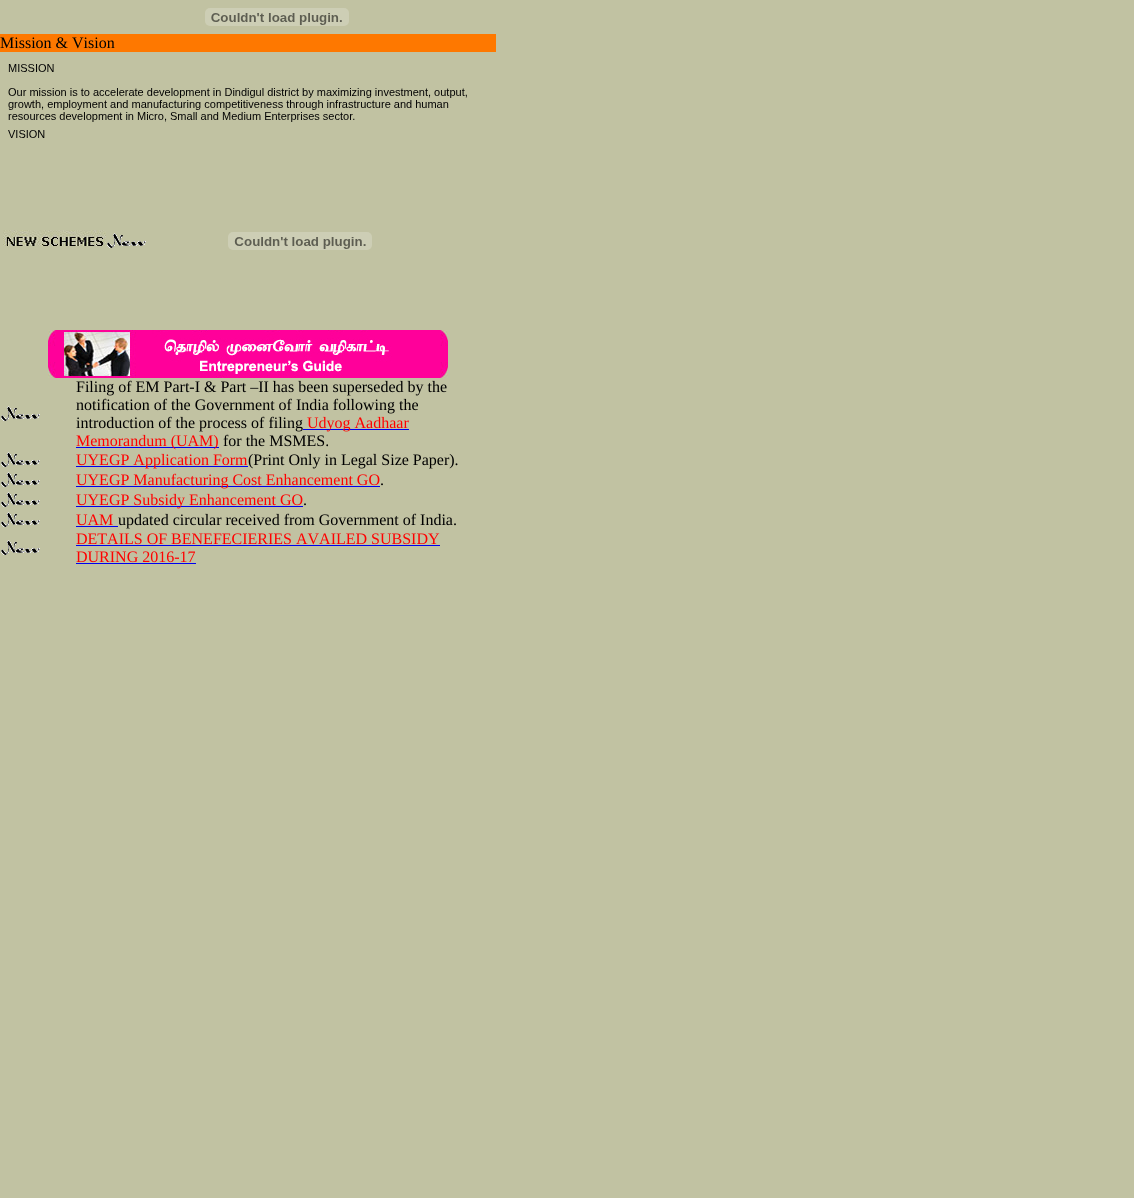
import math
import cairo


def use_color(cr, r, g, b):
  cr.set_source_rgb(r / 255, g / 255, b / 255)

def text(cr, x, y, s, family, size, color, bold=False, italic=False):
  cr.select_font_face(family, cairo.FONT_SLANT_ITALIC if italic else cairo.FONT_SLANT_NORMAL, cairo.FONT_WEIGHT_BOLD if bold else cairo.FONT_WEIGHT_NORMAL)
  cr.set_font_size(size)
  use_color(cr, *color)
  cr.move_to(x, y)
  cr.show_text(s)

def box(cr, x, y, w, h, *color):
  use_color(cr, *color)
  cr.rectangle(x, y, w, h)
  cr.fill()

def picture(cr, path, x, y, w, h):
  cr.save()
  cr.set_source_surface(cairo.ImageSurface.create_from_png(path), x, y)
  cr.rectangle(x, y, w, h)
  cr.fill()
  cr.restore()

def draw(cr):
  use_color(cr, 193, 194, 162)
  cr.paint()
  picture(cr, "img_01.png", 205, 8, 144, 18)
  box(cr, 0, 34, 496, 18, 254, 120, 0)
  picture(cr, "img_02.png", 8, 64, 459, 74)
  picture(cr, "img_03.png", 3, 230, 103, 16)
  picture(cr, "img_04.png", 107, 233, 39, 15)
  picture(cr, "img_05.png", 228, 232, 144, 18)
  picture(cr, "img_06.png", 48, 330, 400, 48)
  picture(cr, "img_04.png", 1, 406, 39, 15)
  box(cr, 303, 429, 106, 1, 0, 0, 238)
  box(cr, 76, 447, 143, 1, 0, 0, 238)
  picture(cr, "img_04.png", 1, 452, 39, 15)
  box(cr, 76, 466, 172, 1, 0, 0, 238)
  picture(cr, "img_04.png", 1, 472, 39, 15)
  box(cr, 76, 486, 304, 1, 0, 0, 238)
  picture(cr, "img_04.png", 1, 492, 39, 15)
  box(cr, 76, 506, 227, 1, 0, 0, 238)
  picture(cr, "img_04.png", 1, 512, 39, 15)
  box(cr, 76, 526, 42, 1, 0, 0, 238)
  picture(cr, "img_04.png", 1, 540, 39, 15)
  box(cr, 76, 545, 364, 1, 0, 0, 238)
  box(cr, 76, 563, 120, 1, 0, 0, 238)
  text(cr, 0, 48, "Mission & Vision", "Liberation Serif", 16, (0, 0, 0))
  text(cr, 76, 392, "Filing of EM Part-I & Part –II has been superseded by the", "Liberation Serif", 16, (0, 0, 0))
  text(cr, 76, 410, "notification of the Government of India following the", "Liberation Serif", 16, (0, 0, 0))
  text(cr, 76, 428, "introduction of the process of filing", "Liberation Serif", 16, (0, 0, 0))
  text(cr, 307, 428, "Udyog Aadhaar", "Liberation Serif", 16, (255, 0, 0))
  text(cr, 76, 446, "Memorandum (UAM)", "Liberation Serif", 16, (255, 0, 0))
  text(cr, 223, 446, "for the MSMES.", "Liberation Serif", 16, (0, 0, 0))
  text(cr, 76, 465, "UYEGP Application Form", "Liberation Serif", 16, (255, 0, 0))
  text(cr, 248, 465, "(Print Only in Legal Size Paper).", "Liberation Serif", 16, (0, 0, 0))
  text(cr, 76, 485, "UYEGP Manufacturing Cost Enhancement GO", "Liberation Serif", 16, (255, 0, 0))
  text(cr, 380, 485, ".", "Liberation Serif", 16, (0, 0, 0))
  text(cr, 76, 505, "UYEGP Subsidy Enhancement GO", "Liberation Serif", 16, (255, 0, 0))
  text(cr, 303, 505, ".", "Liberation Serif", 16, (0, 0, 0))
  text(cr, 76, 525, "UAM", "Liberation Serif", 16, (255, 0, 0))
  text(cr, 118, 525, "updated circular received from Government of India.", "Liberation Serif", 16, (0, 0, 0))
  text(cr, 76, 544, "DETAILS OF BENEFECIERIES AVAILED SUBSIDY", "Liberation Serif", 16, (255, 0, 0))
  text(cr, 76, 562, "DURING 2016-17", "Liberation Serif", 16, (255, 0, 0))


surface = cairo.ImageSurface(cairo.FORMAT_RGB24, 1134, 1198)
cr = cairo.Context(surface)
options = cairo.FontOptions()
options.set_hint_metrics(cairo.HINT_METRICS_OFF)
options.set_hint_style(cairo.HINT_STYLE_NONE)
cr.set_font_options(options)
cr.set_miter_limit(4)
draw(cr)
surface.write_to_png("out.png")
